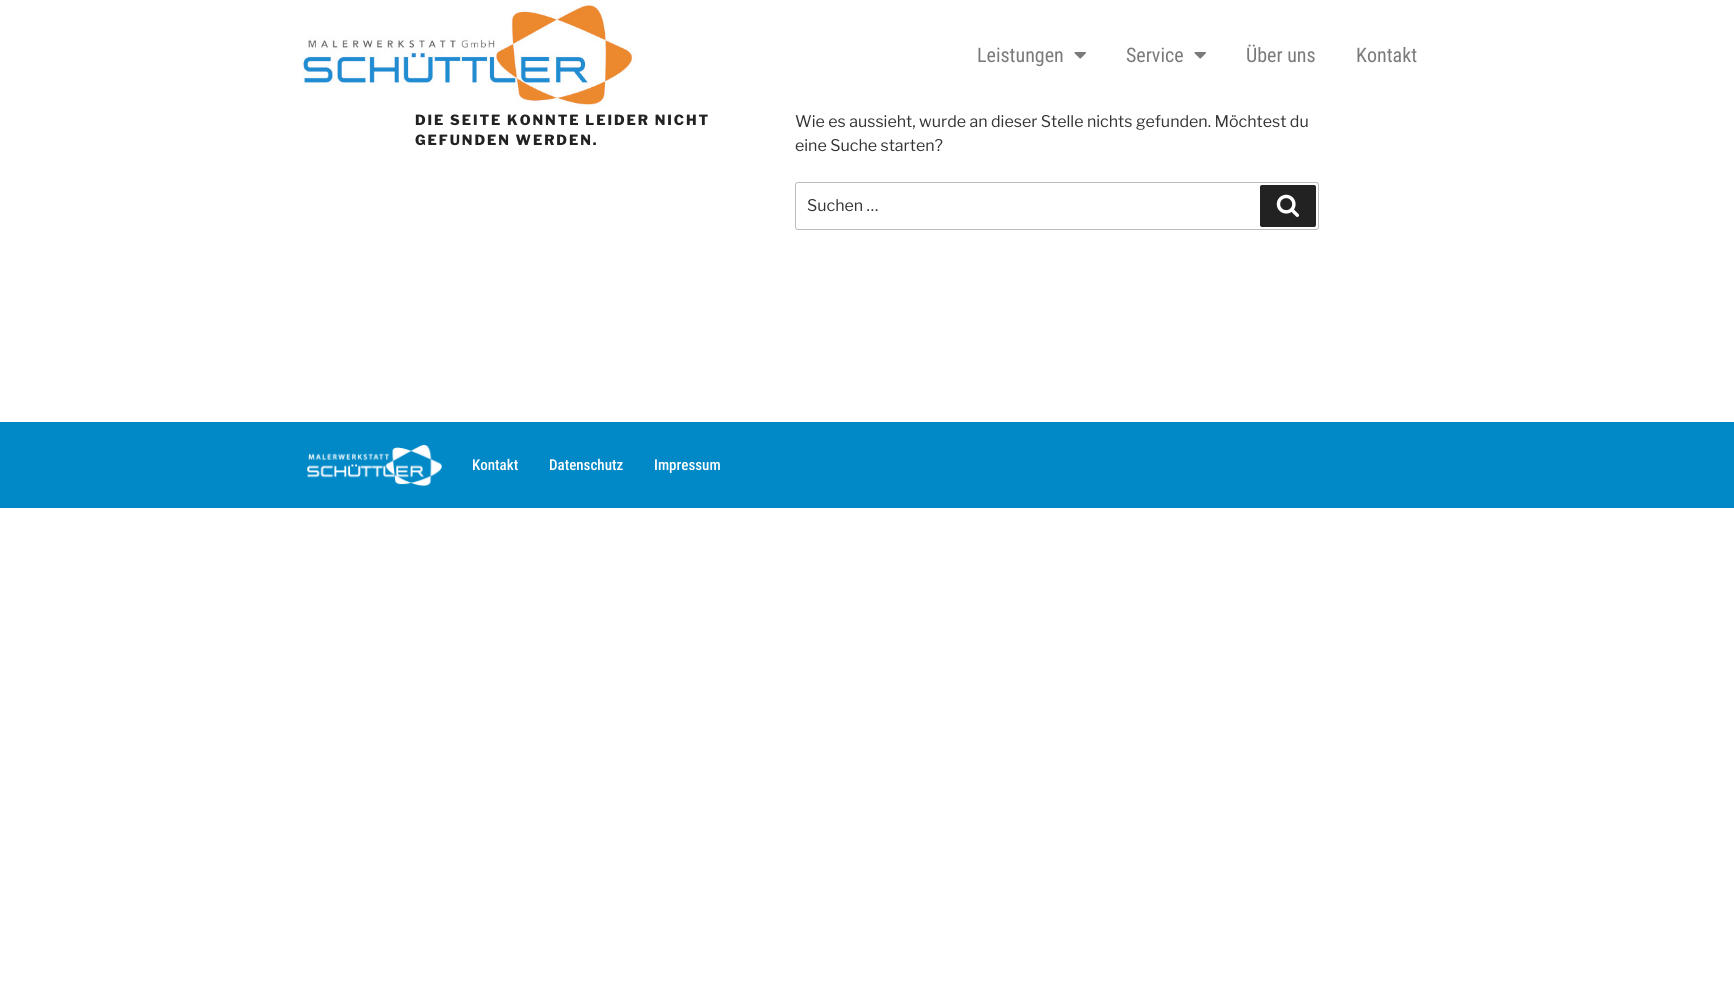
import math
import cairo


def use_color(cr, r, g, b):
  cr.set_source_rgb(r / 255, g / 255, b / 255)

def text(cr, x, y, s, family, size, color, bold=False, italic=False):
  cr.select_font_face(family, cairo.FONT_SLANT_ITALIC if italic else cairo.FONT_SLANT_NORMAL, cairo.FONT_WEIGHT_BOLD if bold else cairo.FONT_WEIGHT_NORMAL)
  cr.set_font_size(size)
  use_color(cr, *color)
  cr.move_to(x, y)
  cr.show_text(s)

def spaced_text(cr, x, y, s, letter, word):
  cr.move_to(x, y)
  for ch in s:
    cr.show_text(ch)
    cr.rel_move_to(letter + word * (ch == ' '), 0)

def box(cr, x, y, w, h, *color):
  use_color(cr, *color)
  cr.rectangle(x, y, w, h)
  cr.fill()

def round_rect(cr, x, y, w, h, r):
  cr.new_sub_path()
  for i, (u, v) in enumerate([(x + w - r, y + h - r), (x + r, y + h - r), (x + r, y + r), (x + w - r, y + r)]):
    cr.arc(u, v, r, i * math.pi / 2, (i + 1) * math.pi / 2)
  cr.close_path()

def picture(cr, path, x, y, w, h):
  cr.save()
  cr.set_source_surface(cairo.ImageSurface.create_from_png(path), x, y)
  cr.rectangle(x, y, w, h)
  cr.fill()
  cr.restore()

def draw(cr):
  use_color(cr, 255, 255, 255)
  cr.paint()
  picture(cr, "img_01.png", 302, 3, 334, 104)
  picture(cr, "img_02.png", 1074, 52, 12, 7)
  picture(cr, "img_02.png", 1194, 52, 12, 7)
  round_rect(cr, 795.5, 182.5, 523, 47, 2.5)
  use_color(cr, 187, 187, 187)
  cr.set_line_width(1)
  cr.stroke()
  use_color(cr, 34, 34, 34)
  round_rect(cr, 1260, 185, 56, 42, 2)
  cr.fill()
  picture(cr, "img_03.png", 1276, 194, 23, 23)
  box(cr, 0, 422, 1734, 86, 0, 136, 199)
  picture(cr, "img_04.png", 307, 445, 135, 41)
  text(cr, 977, 62, "Leistungen", "Roboto Condensed", 20, (122, 122, 122))
  text(cr, 1126, 62, "Service", "Roboto Condensed", 20, (122, 122, 122))
  text(cr, 1246, 62, "Über uns", "Roboto Condensed", 20, (122, 122, 122))
  text(cr, 1356, 62, "Kontakt", "Roboto Condensed", 20, (122, 122, 122))
  cr.select_font_face("Libre Franklin Thin")
  cr.set_font_size(14)
  use_color(cr, 34, 34, 34)
  spaced_text(cr, 415, 125, "DIE SEITE KONNTE LEIDER NICHT", 1.95, 0)
  spaced_text(cr, 415, 145, "GEFUNDEN WERDEN.", 1.95, 0)
  text(cr, 795, 127, "Wie es aussieht, wurde an dieser Stelle nichts gefunden. Möchtest du", "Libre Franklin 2 Thin", 16, (51, 51, 51))
  text(cr, 795, 151, "eine Suche starten?", "Libre Franklin 2 Thin", 16, (51, 51, 51))
  text(cr, 807, 211, "Suchen …", "Libre Franklin 2 Thin", 16, (51, 51, 51))
  text(cr, 472, 470, "Kontakt", "Roboto Condensed Medium", 15, (255, 255, 255))
  text(cr, 549, 470, "Datenschutz", "Roboto Condensed Medium", 15, (255, 255, 255))
  text(cr, 654, 470, "Impressum", "Roboto Condensed Medium", 15, (255, 255, 255))


surface = cairo.ImageSurface(cairo.FORMAT_RGB24, 1734, 993)
cr = cairo.Context(surface)
options = cairo.FontOptions()
options.set_hint_metrics(cairo.HINT_METRICS_OFF)
options.set_hint_style(cairo.HINT_STYLE_NONE)
cr.set_font_options(options)
cr.set_miter_limit(4)
draw(cr)
surface.write_to_png("out.png")
